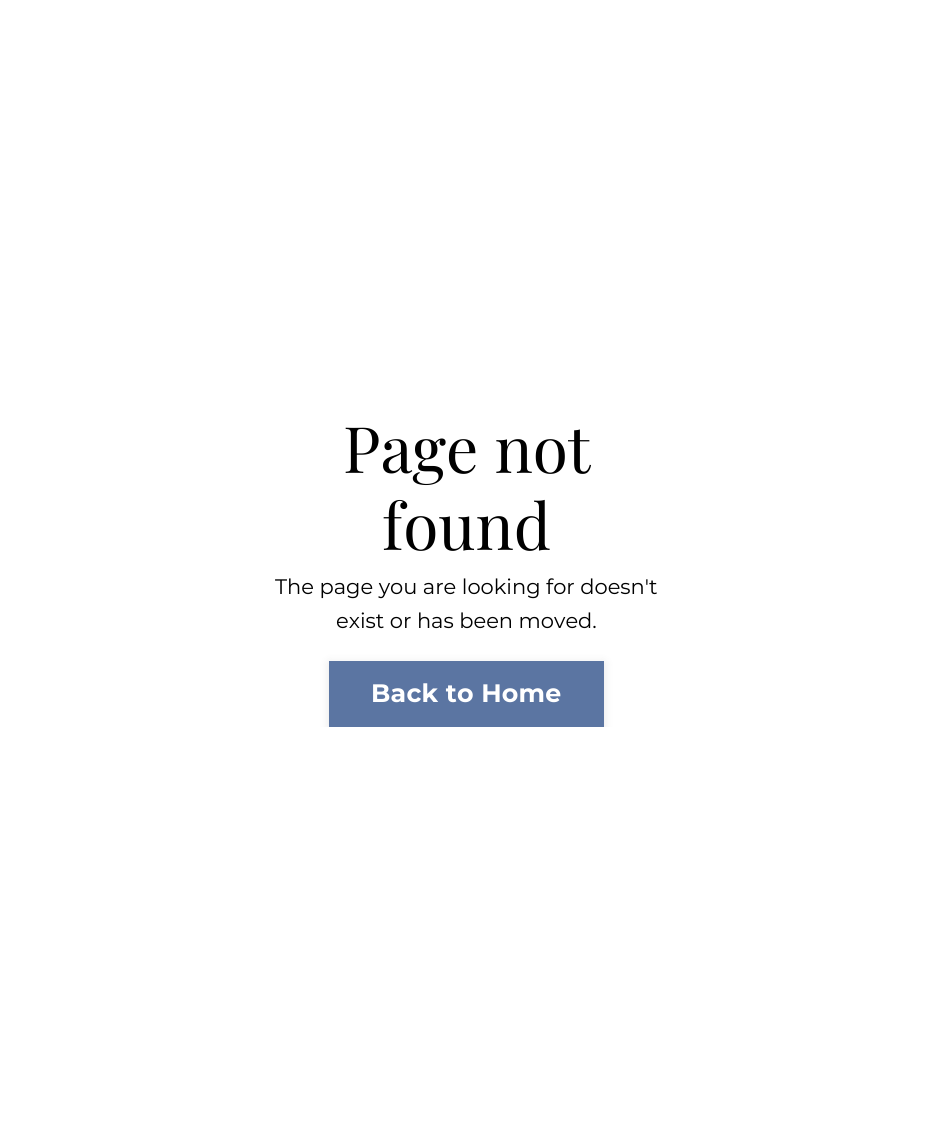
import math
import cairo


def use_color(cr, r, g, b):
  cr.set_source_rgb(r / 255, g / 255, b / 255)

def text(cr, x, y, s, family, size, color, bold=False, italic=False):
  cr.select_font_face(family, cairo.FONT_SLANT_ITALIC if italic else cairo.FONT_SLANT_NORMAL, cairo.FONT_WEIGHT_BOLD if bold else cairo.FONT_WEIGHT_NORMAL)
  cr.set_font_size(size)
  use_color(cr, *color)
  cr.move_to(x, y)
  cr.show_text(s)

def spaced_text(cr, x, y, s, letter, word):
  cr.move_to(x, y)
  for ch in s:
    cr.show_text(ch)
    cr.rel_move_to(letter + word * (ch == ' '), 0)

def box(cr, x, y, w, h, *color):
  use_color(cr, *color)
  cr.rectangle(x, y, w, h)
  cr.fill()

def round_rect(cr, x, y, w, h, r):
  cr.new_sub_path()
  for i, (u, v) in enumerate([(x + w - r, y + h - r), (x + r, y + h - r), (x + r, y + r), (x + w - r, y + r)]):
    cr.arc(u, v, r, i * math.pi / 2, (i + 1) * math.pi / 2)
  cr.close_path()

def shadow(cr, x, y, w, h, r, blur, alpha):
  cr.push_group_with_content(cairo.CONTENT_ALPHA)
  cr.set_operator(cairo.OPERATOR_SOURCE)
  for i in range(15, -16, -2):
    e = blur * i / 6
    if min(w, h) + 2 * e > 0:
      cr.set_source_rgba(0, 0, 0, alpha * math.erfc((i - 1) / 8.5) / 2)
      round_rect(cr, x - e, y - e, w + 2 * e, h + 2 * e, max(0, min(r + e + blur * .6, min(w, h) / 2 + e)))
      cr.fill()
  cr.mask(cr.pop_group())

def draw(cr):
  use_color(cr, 255, 255, 255)
  cr.paint()
  cr.save()
  round_rect(cr, 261, 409, 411, 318, 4)
  cr.clip()
  use_color(cr, 0, 0, 0)
  shadow(cr, 329, 663, 275, 66, 0, 5, 0.1)
  cr.restore()
  box(cr, 329, 661, 275, 66, 91, 117, 162)
  text(cr, 343, 473, "Page not", "Playfair Display", 64, (0, 0, 0))
  text(cr, 382, 550, "found", "Playfair Display", 64, (0, 0, 0))
  text(cr, 275, 594, "The page you are looking for doesn't", "Montserrat", 21, (0, 0, 0))
  text(cr, 336, 628, "exist or has been moved.", "Montserrat", 21, (0, 0, 0))
  cr.select_font_face("Montserrat", cairo.FONT_SLANT_NORMAL, cairo.FONT_WEIGHT_BOLD)
  cr.set_font_size(25.25)
  use_color(cr, 255, 255, 255)
  spaced_text(cr, 371, 702, "Back to Home", 0.25, 0)


surface = cairo.ImageSurface(cairo.FORMAT_RGB24, 933, 1136)
cr = cairo.Context(surface)
options = cairo.FontOptions()
options.set_hint_metrics(cairo.HINT_METRICS_OFF)
options.set_hint_style(cairo.HINT_STYLE_NONE)
cr.set_font_options(options)
cr.set_miter_limit(4)
draw(cr)
surface.write_to_png("out.png")
